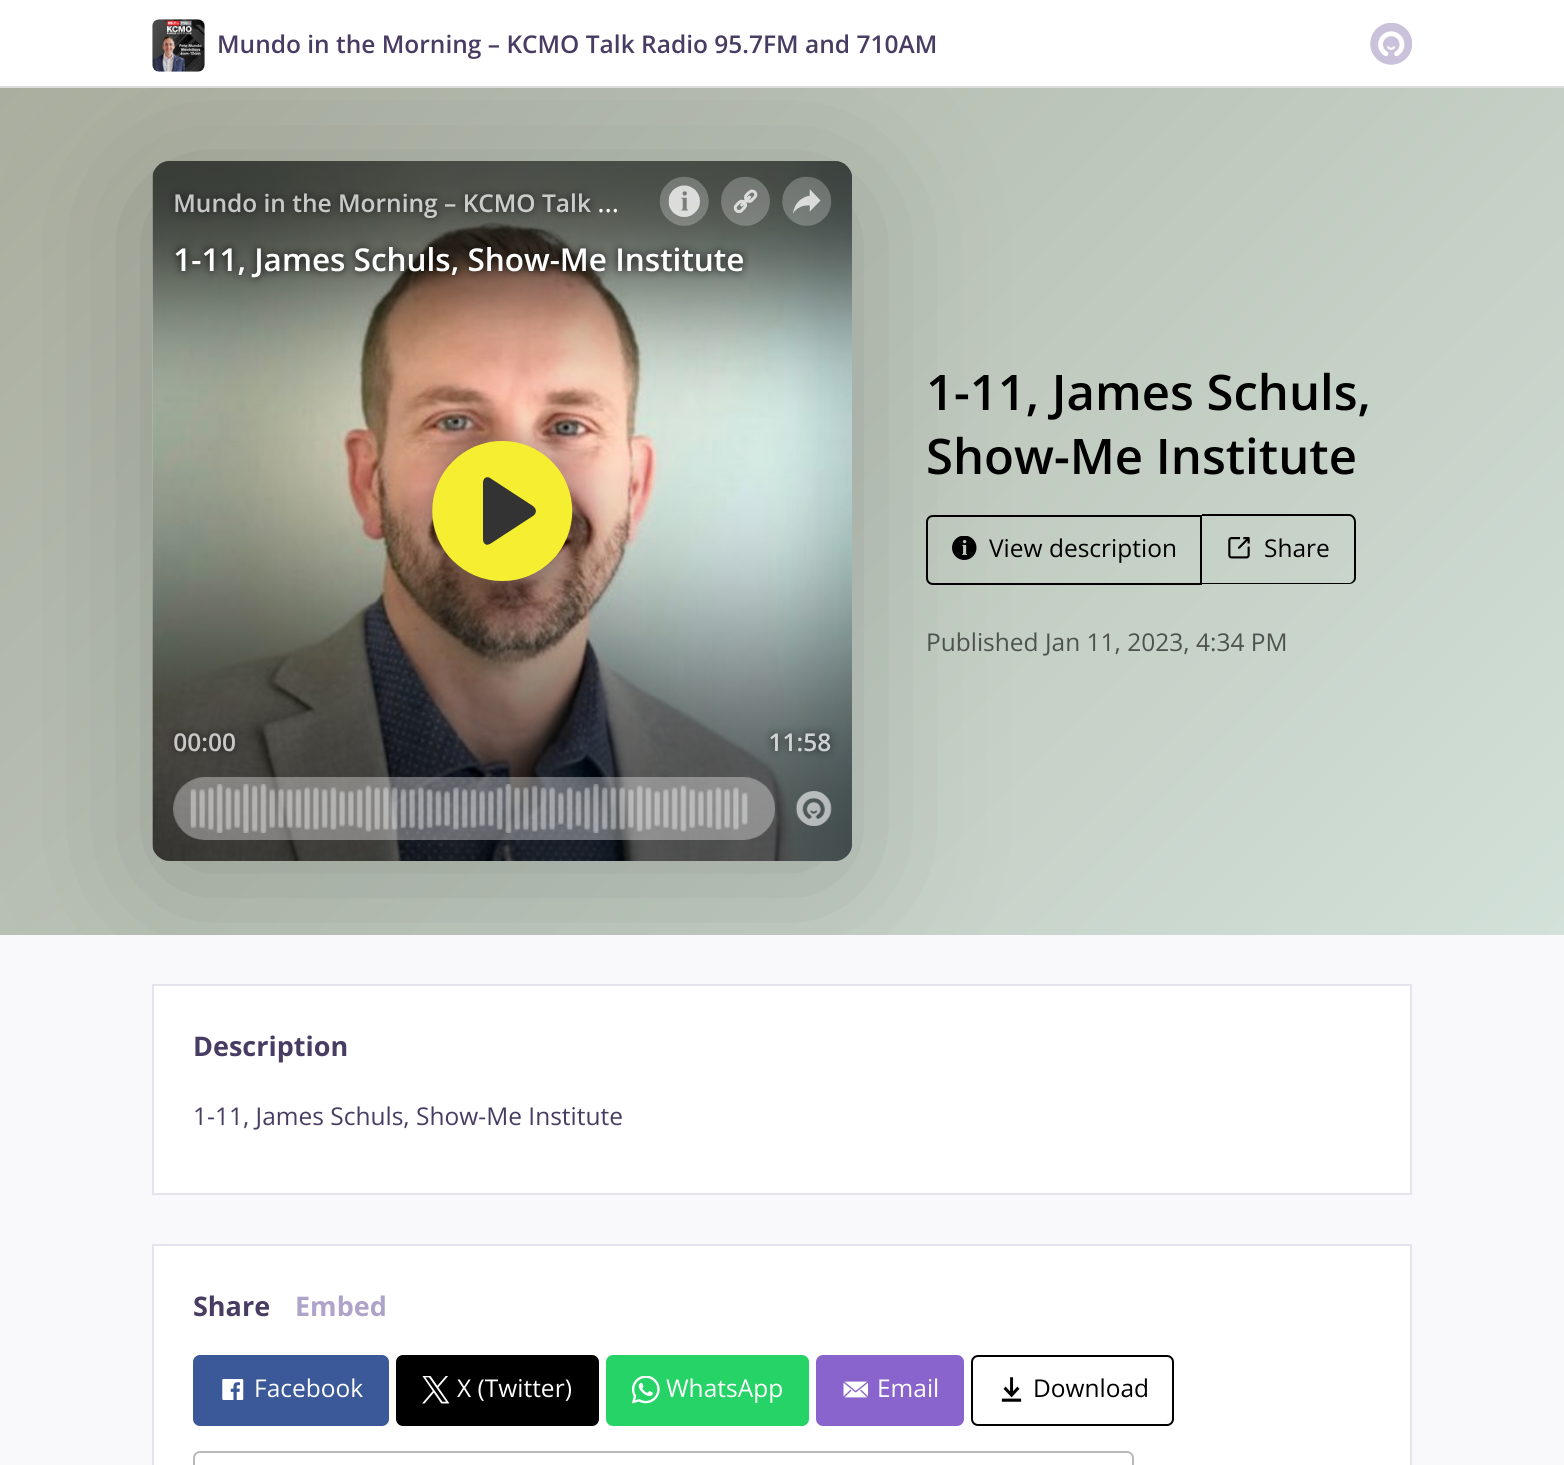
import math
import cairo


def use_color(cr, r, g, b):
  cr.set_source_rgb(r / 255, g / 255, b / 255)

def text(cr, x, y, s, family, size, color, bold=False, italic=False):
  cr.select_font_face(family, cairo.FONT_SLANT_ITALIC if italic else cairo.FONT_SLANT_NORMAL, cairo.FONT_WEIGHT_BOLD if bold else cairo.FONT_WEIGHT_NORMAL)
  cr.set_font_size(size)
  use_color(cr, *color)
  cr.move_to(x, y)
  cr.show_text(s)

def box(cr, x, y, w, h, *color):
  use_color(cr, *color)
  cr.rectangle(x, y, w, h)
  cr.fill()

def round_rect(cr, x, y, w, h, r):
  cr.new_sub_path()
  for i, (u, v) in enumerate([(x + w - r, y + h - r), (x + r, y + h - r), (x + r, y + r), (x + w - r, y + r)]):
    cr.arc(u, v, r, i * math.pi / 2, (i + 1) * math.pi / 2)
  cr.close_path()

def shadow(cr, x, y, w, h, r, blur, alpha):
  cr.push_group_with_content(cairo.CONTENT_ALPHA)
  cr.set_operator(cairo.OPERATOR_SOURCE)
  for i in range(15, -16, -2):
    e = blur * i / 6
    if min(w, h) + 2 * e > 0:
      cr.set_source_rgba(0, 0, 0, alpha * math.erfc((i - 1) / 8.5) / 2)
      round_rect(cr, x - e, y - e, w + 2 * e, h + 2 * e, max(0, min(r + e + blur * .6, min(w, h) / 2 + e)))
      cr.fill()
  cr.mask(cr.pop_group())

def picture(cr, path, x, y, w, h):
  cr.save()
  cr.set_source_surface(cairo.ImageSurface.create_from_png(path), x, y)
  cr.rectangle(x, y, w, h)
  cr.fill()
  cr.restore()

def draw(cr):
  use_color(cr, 249, 248, 251)
  cr.paint()
  box(cr, 0, 0, 1564, 86, 255, 255, 255)
  box(cr, 0, 86, 1564, 2, 221, 221, 221)
  picture(cr, "img_01.png", 152, 19, 53, 53)
  picture(cr, "img_02.png", 1370, 23, 42, 42)
  gradient = cairo.LinearGradient(179, -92, 1385, 1114)
  gradient.add_color_stop_rgba(0, 0.667, 0.682, 0.624, 1)
  gradient.add_color_stop_rgba(1, 0.824, 0.882, 0.851, 1)
  cr.set_source(gradient)
  cr.rectangle(0, 88, 1564, 847)
  cr.fill()
  cr.new_path()
  cr.move_to(933, 516)
  cr.line_to(1201, 516)
  cr.line_to(1201, 584)
  cr.line_to(933, 584)
  cr.curve_to(929.5, 584, 927, 581.5, 927, 578)
  cr.line_to(927, 522)
  cr.curve_to(927, 518.5, 929.5, 516, 933, 516)
  cr.close_path()
  use_color(cr, 0, 0, 0)
  cr.stroke()
  use_color(cr, 255, 255, 255)
  cr.rectangle(153, 985, 1258, 209)
  cr.fill_preserve()
  use_color(cr, 230, 226, 238)
  cr.stroke()
  cr.save()
  cr.rectangle(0, 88, 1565, 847)
  cr.clip()
  use_color(cr, 0, 0, 0)
  shadow(cr, 152, 186, 700, 700, 18, 73.5, 0.2)
  cr.restore()
  cr.set_source_rgba(0, 0, 0, 0.2)
  round_rect(cr, 152, 161, 700, 700, 18)
  cr.fill()
  picture(cr, "img_03.png", 152, 161, 700, 700)
  picture(cr, "img_04.png", 952, 536, 25, 24)
  use_color(cr, 0, 0, 0)
  cr.set_fill_rule(cairo.FILL_RULE_EVEN_ODD)
  cr.new_path()
  cr.move_to(1202, 514)
  cr.line_to(1349, 514)
  cr.curve_to(1353, 514, 1356, 518, 1356, 522)
  cr.line_to(1356, 578)
  cr.curve_to(1356, 581, 1353, 584, 1349, 584)
  cr.line_to(1202, 584)
  cr.close_path()
  cr.move_to(1202, 516)
  cr.line_to(1349, 516)
  cr.curve_to(1352, 516, 1354, 519, 1354, 522)
  cr.line_to(1354, 578)
  cr.curve_to(1354, 580, 1352, 583, 1349, 583)
  cr.line_to(1202, 583)
  cr.close_path()
  cr.fill()
  picture(cr, "img_05.png", 1228, 537, 22, 22)
  use_color(cr, 255, 255, 255)
  cr.rectangle(153, 1245, 1258, 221)
  cr.fill_preserve()
  use_color(cr, 230, 226, 238)
  cr.stroke()
  use_color(cr, 59, 89, 152)
  round_rect(cr, 194, 1356, 194, 69, 6)
  cr.fill_preserve()
  cr.stroke()
  picture(cr, "img_06.png", 222, 1379, 22, 21)
  use_color(cr, 0, 0, 0)
  round_rect(cr, 397, 1356, 201, 69, 6)
  cr.fill_preserve()
  cr.stroke()
  picture(cr, "img_07.png", 422, 1376, 28, 28)
  use_color(cr, 37, 211, 102)
  round_rect(cr, 607, 1356, 201, 69, 6)
  cr.fill_preserve()
  cr.stroke()
  picture(cr, "img_08.png", 632, 1376, 28, 28)
  use_color(cr, 137, 100, 204)
  round_rect(cr, 817, 1356, 146, 69, 6)
  cr.fill_preserve()
  cr.stroke()
  picture(cr, "img_09.png", 843, 1381, 25, 17)
  round_rect(cr, 972, 1356, 201, 69, 6)
  use_color(cr, 0, 0, 0)
  cr.stroke()
  picture(cr, "img_10.png", 1001, 1377, 21, 25)
  round_rect(cr, 194, 1452, 939, 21, 6)
  use_color(cr, 185, 185, 185)
  cr.stroke()
  text(cr, 217, 53, "Mundo in the Morning – KCMO Talk Radio 95.7FM and 710AM", "Open Sans SemiBold", 24.5, (72, 60, 99))
  text(cr, 926, 410, "1-11, James Schuls,", "Open Sans SemiBold", 49, (0, 0, 0))
  text(cr, 926, 474, "Show-Me Institute", "Open Sans SemiBold", 49, (0, 0, 0))
  text(cr, 989, 557, "View description", "Open Sans", 24.5, (0, 0, 0))
  text(cr, 1264, 557, "Share", "Open Sans", 24.5, (0, 0, 0))
  text(cr, 926, 651, "Published", "Open Sans", 24.5, (77, 82, 78))
  text(cr, 1045, 651, "Jan 11, 2023, 4:34 PM", "Open Sans", 24.5, (77, 82, 78))
  text(cr, 193, 1056, "Description", "Open Sans", 27, (72, 60, 99), bold=True)
  text(cr, 193, 1125, "1-11, James Schuls, Show-Me Institute", "Open Sans", 24.5, (72, 60, 99))
  text(cr, 193, 1316, "Share", "Open Sans", 27, (72, 60, 99), bold=True)
  text(cr, 295, 1316, "Embed", "Open Sans", 27, (174, 163, 200), bold=True)
  text(cr, 254, 1397, "Facebook", "Open Sans", 24.5, (255, 255, 255))
  text(cr, 457, 1397, "X (Twitter)", "Open Sans", 24.5, (255, 255, 255))
  text(cr, 666, 1397, "WhatsApp", "Open Sans", 24.5, (255, 255, 255))
  text(cr, 877, 1397, "Email", "Open Sans", 24.5, (255, 255, 255))
  text(cr, 1033, 1397, "Download", "Open Sans", 24.5, (0, 0, 0))


surface = cairo.ImageSurface(cairo.FORMAT_RGB24, 1564, 1465)
cr = cairo.Context(surface)
options = cairo.FontOptions()
options.set_hint_metrics(cairo.HINT_METRICS_OFF)
options.set_hint_style(cairo.HINT_STYLE_NONE)
cr.set_font_options(options)
cr.set_miter_limit(4)
draw(cr)
surface.write_to_png("out.png")
